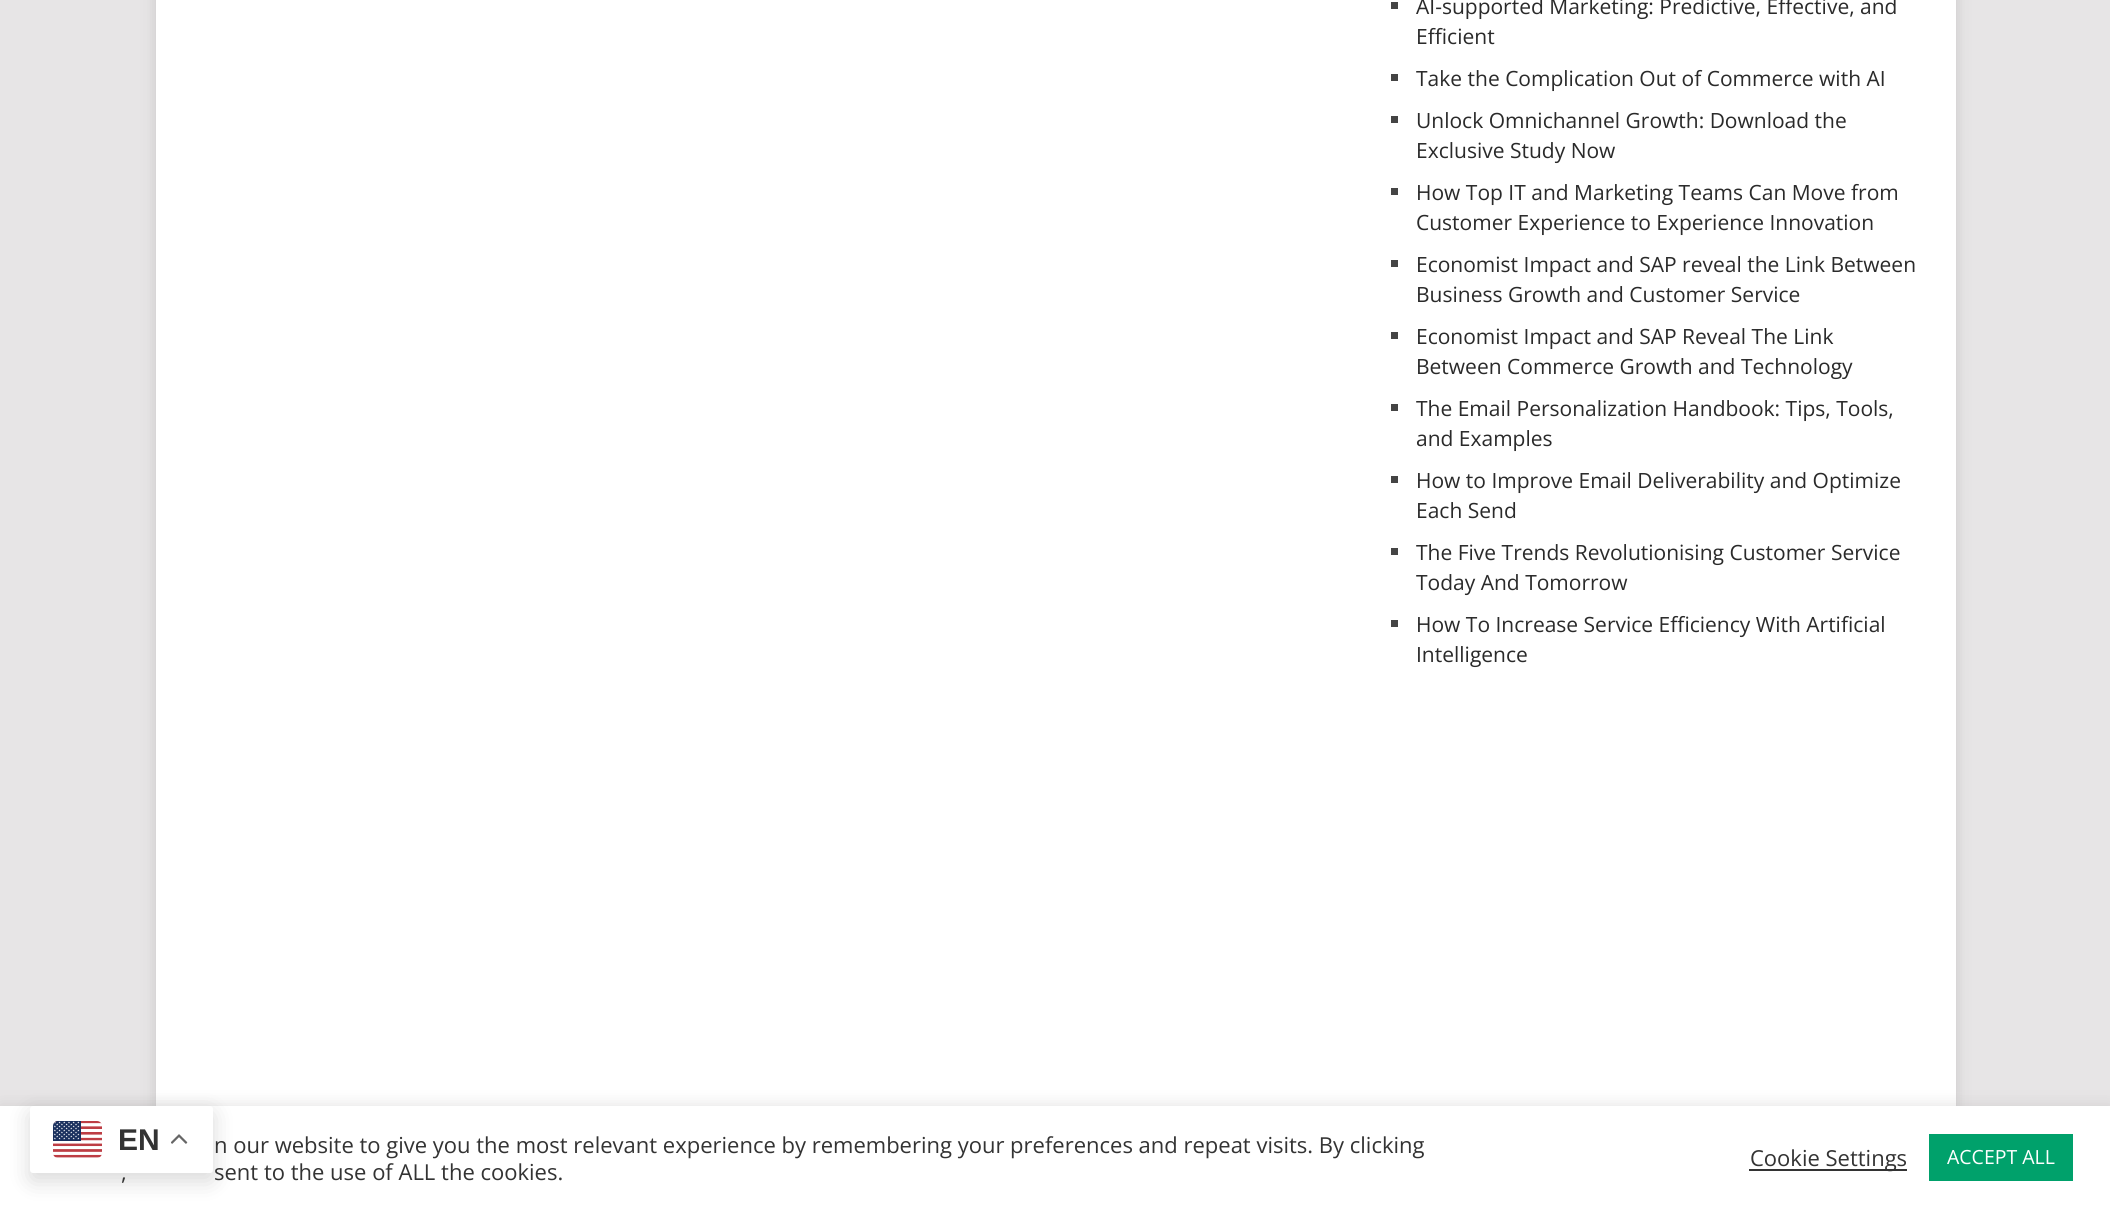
import math
import cairo


def use_color(cr, r, g, b):
  cr.set_source_rgb(r / 255, g / 255, b / 255)

def text(cr, x, y, s, family, size, color, bold=False, italic=False):
  cr.select_font_face(family, cairo.FONT_SLANT_ITALIC if italic else cairo.FONT_SLANT_NORMAL, cairo.FONT_WEIGHT_BOLD if bold else cairo.FONT_WEIGHT_NORMAL)
  cr.set_font_size(size)
  use_color(cr, *color)
  cr.move_to(x, y)
  cr.show_text(s)

def box(cr, x, y, w, h, *color):
  use_color(cr, *color)
  cr.rectangle(x, y, w, h)
  cr.fill()

def round_rect(cr, x, y, w, h, r):
  cr.new_sub_path()
  for i, (u, v) in enumerate([(x + w - r, y + h - r), (x + r, y + h - r), (x + r, y + r), (x + w - r, y + r)]):
    cr.arc(u, v, r, i * math.pi / 2, (i + 1) * math.pi / 2)
  cr.close_path()

def shadow(cr, x, y, w, h, r, blur, alpha):
  cr.push_group_with_content(cairo.CONTENT_ALPHA)
  cr.set_operator(cairo.OPERATOR_SOURCE)
  for i in range(15, -16, -2):
    e = blur * i / 6
    if min(w, h) + 2 * e > 0:
      cr.set_source_rgba(0, 0, 0, alpha * math.erfc((i - 1) / 8.5) / 2)
      round_rect(cr, x - e, y - e, w + 2 * e, h + 2 * e, max(0, min(r + e + blur * .6, min(w, h) / 2 + e)))
      cr.fill()
  cr.mask(cr.pop_group())

def picture(cr, path, x, y, w, h):
  cr.save()
  cr.set_source_surface(cairo.ImageSurface.create_from_png(path), x, y)
  cr.rectangle(x, y, w, h)
  cr.fill()
  cr.restore()

def draw(cr):
  use_color(cr, 231, 229, 230)
  cr.paint()
  use_color(cr, 50, 50, 50)
  shadow(cr, 156, -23, 1800, 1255, 0, 7.5, 0.17)
  box(cr, 156, 0, 1800, 1106, 255, 255, 255)
  box(cr, 1391, 2, 7, 7, 68, 68, 68)
  box(cr, 1391, 74, 7, 7, 68, 68, 68)
  box(cr, 1391, 116, 7, 7, 68, 68, 68)
  box(cr, 1391, 188, 7, 7, 68, 68, 68)
  box(cr, 1391, 260, 7, 7, 68, 68, 68)
  box(cr, 1391, 332, 7, 7, 68, 68, 68)
  box(cr, 1391, 404, 7, 7, 68, 68, 68)
  box(cr, 1391, 476, 7, 7, 68, 68, 68)
  box(cr, 1391, 548, 7, 7, 68, 68, 68)
  box(cr, 1391, 620, 7, 7, 68, 68, 68)
  use_color(cr, 172, 171, 171)
  shadow(cr, 0, 1104, 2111, 104, 0, 7.5, 0.3)
  box(cr, 0, 1106, 2110, 103, 255, 255, 255)
  box(cr, 1749, 1169, 158, 2, 51, 51, 51)
  box(cr, 1929, 1134, 144, 47, 0, 161, 107)
  use_color(cr, 0, 0, 0)
  shadow(cr, 30, 1113, 183, 68, 3, 11, 0.15)
  use_color(cr, 255, 255, 255)
  round_rect(cr, 30, 1106, 183, 67, 3)
  cr.fill()
  picture(cr, "img_01.png", 53, 1121, 49, 37)
  picture(cr, "img_02.png", 171, 1134, 17, 10)
  text(cr, 1416, 14, "AI-supported Marketing: Predictive, Effective, and", "Open Sans", 21, (42, 42, 42))
  text(cr, 1416, 44, "Efficient", "Open Sans", 21, (42, 42, 42))
  text(cr, 1416, 86, "Take the Complication Out of Commerce with AI", "Open Sans", 21, (42, 42, 42))
  text(cr, 1416, 128, "Unlock Omnichannel Growth: Download the", "Open Sans", 21, (42, 42, 42))
  text(cr, 1416, 158, "Exclusive Study Now", "Open Sans", 21, (42, 42, 42))
  text(cr, 1416, 200, "How Top IT and Marketing Teams Can Move from", "Open Sans", 21, (42, 42, 42))
  text(cr, 1416, 230, "Customer Experience to Experience Innovation", "Open Sans", 21, (42, 42, 42))
  text(cr, 1416, 272, "Economist Impact and SAP reveal the Link Between", "Open Sans", 21, (42, 42, 42))
  text(cr, 1416, 302, "Business Growth and Customer Service", "Open Sans", 21, (42, 42, 42))
  text(cr, 1416, 344, "Economist Impact and SAP Reveal The Link", "Open Sans", 21, (42, 42, 42))
  text(cr, 1416, 374, "Between Commerce Growth and Technology", "Open Sans", 21, (42, 42, 42))
  text(cr, 1416, 416, "The Email Personalization Handbook: Tips, Tools,", "Open Sans", 21, (42, 42, 42))
  text(cr, 1416, 446, "and Examples", "Open Sans", 21, (42, 42, 42))
  text(cr, 1416, 488, "How to Improve Email Deliverability and Optimize", "Open Sans", 21, (42, 42, 42))
  text(cr, 1416, 518, "Each Send", "Open Sans", 21, (42, 42, 42))
  text(cr, 1416, 560, "The Five Trends Revolutionising Customer Service", "Open Sans", 21, (42, 42, 42))
  text(cr, 1416, 590, "Today And Tomorrow", "Open Sans", 21, (42, 42, 42))
  text(cr, 1416, 632, "How To Increase Service Efficiency With Artificial", "Open Sans", 21, (42, 42, 42))
  text(cr, 1416, 662, "Intelligence", "Open Sans", 21, (42, 42, 42))
  text(cr, 214, 1153, "n our website to give you the most relevant experience by remembering your preferences and repeat visits. By clicking", "Open Sans", 22, (51, 51, 51))
  text(cr, 121, 1180, ",", "Open Sans", 22, (51, 51, 51))
  text(cr, 214, 1180, "sent to the use of ALL the cookies.", "Open Sans", 22, (51, 51, 51))
  text(cr, 1750, 1166, "Cookie Settings", "Open Sans", 22, (51, 51, 51))
  text(cr, 1947, 1164, "ACCEPT ALL", "Open Sans", 19.5, (255, 255, 255))
  text(cr, 118, 1150, "EN", "Liberation Sans", 30, (51, 51, 51), bold=True)


surface = cairo.ImageSurface(cairo.FORMAT_RGB24, 2110, 1209)
cr = cairo.Context(surface)
options = cairo.FontOptions()
options.set_hint_metrics(cairo.HINT_METRICS_OFF)
options.set_hint_style(cairo.HINT_STYLE_NONE)
cr.set_font_options(options)
cr.set_miter_limit(4)
draw(cr)
surface.write_to_png("out.png")
